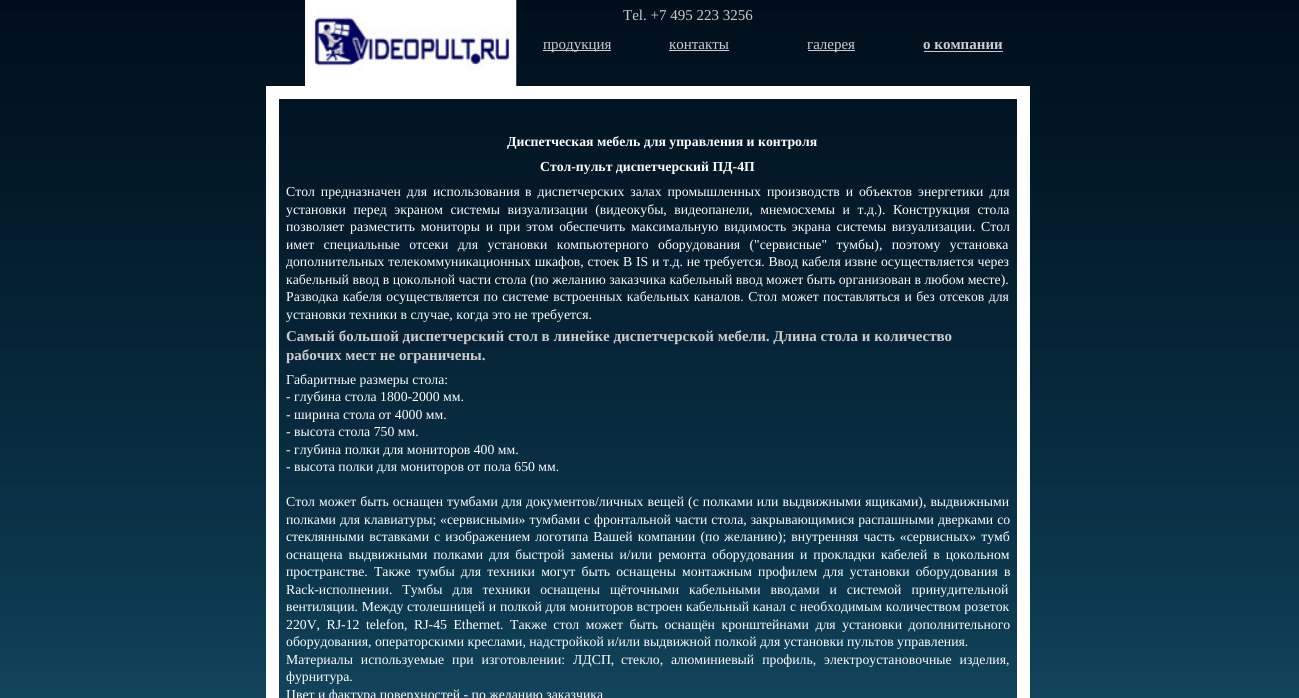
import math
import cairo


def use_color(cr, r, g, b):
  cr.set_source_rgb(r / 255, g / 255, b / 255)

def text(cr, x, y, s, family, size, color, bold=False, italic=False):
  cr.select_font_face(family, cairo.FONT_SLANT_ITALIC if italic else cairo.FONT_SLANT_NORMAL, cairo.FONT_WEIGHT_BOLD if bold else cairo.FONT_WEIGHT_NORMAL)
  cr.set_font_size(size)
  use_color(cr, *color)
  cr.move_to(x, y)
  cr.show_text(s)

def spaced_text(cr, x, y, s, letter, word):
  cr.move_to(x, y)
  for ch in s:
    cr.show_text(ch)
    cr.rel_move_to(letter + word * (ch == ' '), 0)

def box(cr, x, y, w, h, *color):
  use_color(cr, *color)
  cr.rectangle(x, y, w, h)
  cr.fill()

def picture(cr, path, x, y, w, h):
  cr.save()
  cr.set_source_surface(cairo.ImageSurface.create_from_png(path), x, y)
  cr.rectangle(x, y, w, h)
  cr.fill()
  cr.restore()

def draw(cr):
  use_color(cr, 255, 255, 255)
  cr.paint()
  picture(cr, "img_01.png", 0, 0, 1299, 698)
  picture(cr, "img_02.png", 305, 0, 212, 86)
  box(cr, 543, 50, 68, 1, 204, 204, 204)
  box(cr, 669, 50, 60, 1, 204, 204, 204)
  box(cr, 808, 50, 47, 1, 204, 204, 204)
  box(cr, 924, 51, 79, 1, 204, 204, 204)
  cr.rectangle(272.5, 92.5, 751, 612)
  use_color(cr, 255, 255, 255)
  cr.set_line_width(13)
  cr.stroke()
  text(cr, 623, 20, "Tel. +7 495 223 3256", "Liberation Serif", 15, (204, 204, 204))
  text(cr, 543, 49, "продукция", "Liberation Serif", 15, (204, 204, 204))
  text(cr, 669, 49, "контакты", "Liberation Serif", 15, (204, 204, 204))
  text(cr, 807, 49, "галерея", "Liberation Serif", 15, (204, 204, 204))
  text(cr, 923, 49, "о компании", "Liberation Serif", 15, (204, 204, 204), bold=True)
  text(cr, 507, 146, "Диспетческая мебель для управления и контроля", "Liberation Serif", 13.75, (255, 255, 255), bold=True)
  text(cr, 540, 171, "Стол-пульт диспетчерский ПД-4П", "Liberation Serif", 13.75, (255, 255, 255), bold=True)
  cr.select_font_face("Liberation Serif")
  spaced_text(cr, 286, 196, "Стол предназначен для использования", 0, 2.5)
  spaced_text(cr, 525, 196, "в диспетчерских залах промышленных производств и объектов энергетики для", 0, 2.5)
  spaced_text(cr, 286, 214, "установки перед экраном системы визуализации (видеокубы, видеопанели, мнемосхемы и т.д.). Конструкция стола", 0, 4.1)
  spaced_text(cr, 286, 231, "позволяет разместить мониторы и при этом обеспечить максимальную видимость экрана системы визуализации. Стол", 0, 2.25)
  spaced_text(cr, 286, 249, "имет специальные отсеки для установки компьютерного оборудования (\"сервисные\" тумбы), поэтому установка", 0, 6)
  spaced_text(cr, 286, 266, "дополнительных телекоммуникационных шкафов, стоек B IS и т.д. не требуется. Ввод кабеля извне осуществляется через", 0, 0.3)
  text(cr, 286, 284, "кабельный ввод в цокольной части стола (по желанию заказчика кабельный ввод может быть организован в любом месте).", "Liberation Serif", 13.75, (255, 255, 255))
  spaced_text(cr, 286, 301, "Разводка кабеля осуществляется по системе встроенных кабельных каналов. Стол может поставляться и без отсеков для", 0, 1)
  text(cr, 286, 319, "установки техники в случае, когда это не требуется.", "Liberation Serif", 13.75, (255, 255, 255))
  text(cr, 286, 341, "Самый большой диспетчерский стол в линейке диспетчерской мебели. Длина стола и количество", "Liberation Serif", 15, (204, 204, 204), bold=True)
  text(cr, 286, 360, "рабочих мест не ограничены.", "Liberation Serif", 15, (204, 204, 204), bold=True)
  text(cr, 286, 384, "Габаритные размеры стола:", "Liberation Serif", 13.75, (255, 255, 255))
  text(cr, 286, 401, "- глубина стола 1800-2000 мм.", "Liberation Serif", 13.75, (255, 255, 255))
  text(cr, 286, 419, "- ширина стола от 4000 мм.", "Liberation Serif", 13.75, (255, 255, 255))
  text(cr, 286, 436, "- высота стола 750 мм.", "Liberation Serif", 13.75, (255, 255, 255))
  text(cr, 286, 454, "- глубина полки для мониторов 400 мм.", "Liberation Serif", 13.75, (255, 255, 255))
  text(cr, 286, 471, "- высота полки для мониторов от пола 650 мм.", "Liberation Serif", 13.75, (255, 255, 255))
  spaced_text(cr, 286, 506, "Стол может быть оснащен", 0, 0.6)
  spaced_text(cr, 447, 506, "тумбами для документов/личных вещей (с полками или выдвижными ящиками), выдвижными", 0, 0.6)
  spaced_text(cr, 286, 524, "полками для клавиатуры;", 0, 0.5)
  spaced_text(cr, 440, 524, "«сервисными» тумбами с фронтальной части стола, закрывающимися распашными дверками со", 0, 0.5)
  spaced_text(cr, 286, 541, "стеклянными вставками с изображением логотипа Вашей компании (по желанию); внутренняя часть «сервисных» тумб", 0, 1.6)
  spaced_text(cr, 286, 559, "оснащена выдвижными полками для быстрой замены и/или ремонта оборудования и прокладки кабелей в цокольном", 0, 2.5)
  spaced_text(cr, 286, 576, "пространстве. Также тумбы для техники могут быть оснащены монтажным профилем для установки оборудования в", 0, 2.75)
  spaced_text(cr, 286, 594, "Rack-исполнении. Тумбы для техники оснащены щёточными кабельными вводами и системой принудительной", 0, 6.5)
  spaced_text(cr, 286, 611, "вентиляции. Между столешницей и полкой для мониторов встроен кабельный канал", 0, 0.25)
  spaced_text(cr, 790, 611, "с необходимым количеством розеток", 0, 0.3)
  spaced_text(cr, 286, 629, "220V, RJ-12 telefon, RJ-45 Ethernet. Также стол может быть оснащён кронштейнами для установки дополнительного", 0, 3.1)
  text(cr, 286, 646, "оборудования, операторскими креслами, надстройкой и/или выдвижной полкой для установки пультов управления.", "Liberation Serif", 13.75, (255, 255, 255))
  spaced_text(cr, 286, 664, "Материалы используемые при изготовлении: ЛДСП,", 0, 4.5)
  spaced_text(cr, 621, 664, "стекло, алюминиевый профиль, электроустановочные изделия,", 0, 4.5)
  text(cr, 286, 681, "фурнитура.", "Liberation Serif", 13.75, (255, 255, 255))
  text(cr, 286, 699, "Цвет и фактура поверхностей - по желанию заказчика", "Liberation Serif", 13.75, (255, 255, 255))


surface = cairo.ImageSurface(cairo.FORMAT_RGB24, 1299, 698)
cr = cairo.Context(surface)
options = cairo.FontOptions()
options.set_hint_metrics(cairo.HINT_METRICS_OFF)
options.set_hint_style(cairo.HINT_STYLE_NONE)
cr.set_font_options(options)
cr.set_miter_limit(4)
draw(cr)
surface.write_to_png("out.png")
